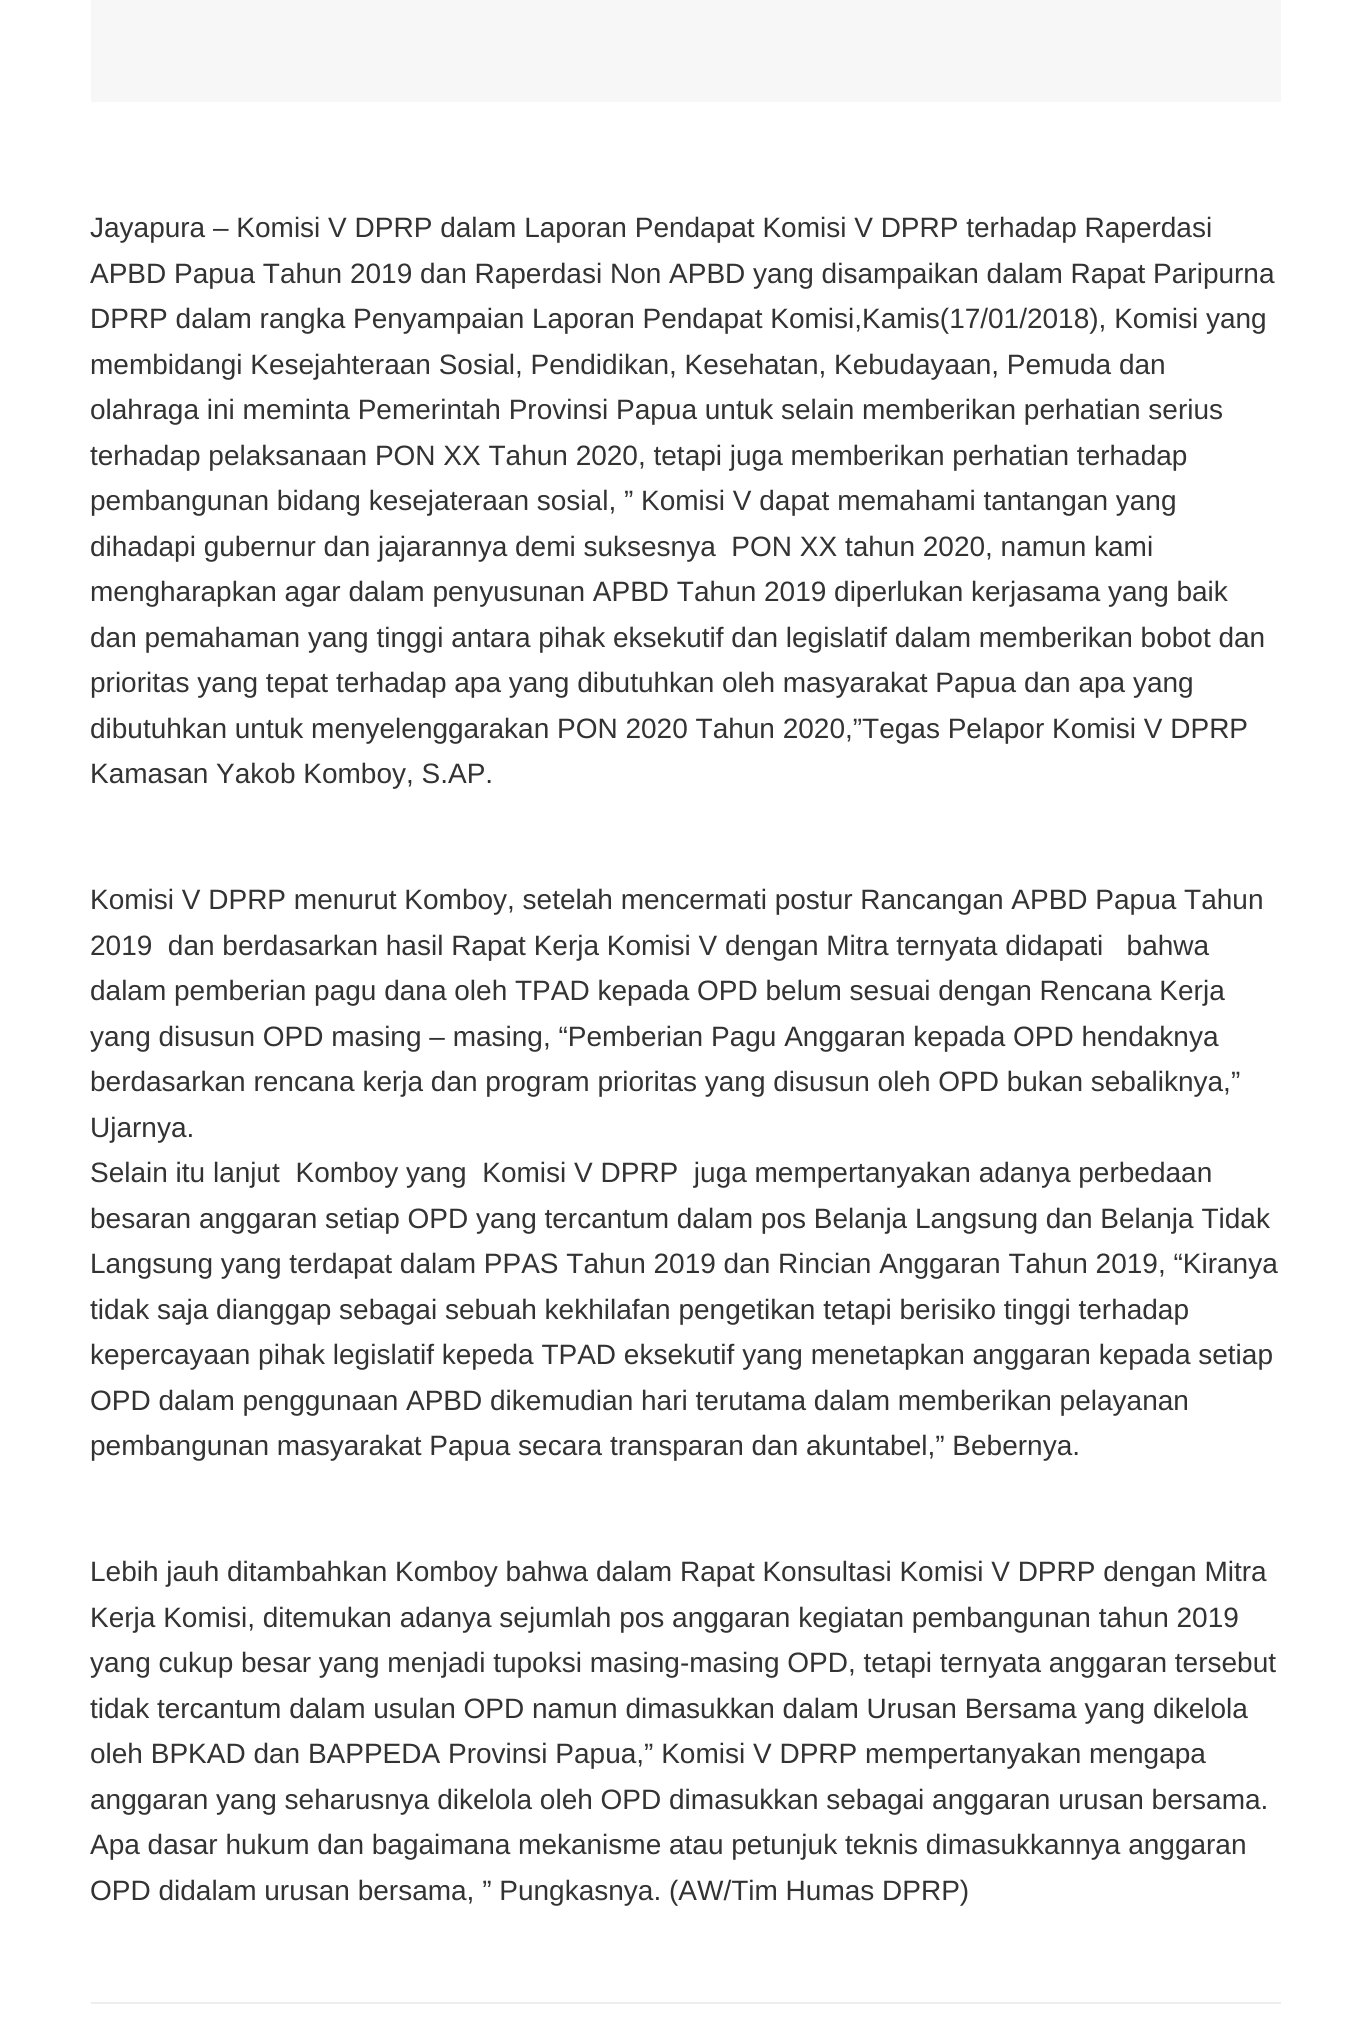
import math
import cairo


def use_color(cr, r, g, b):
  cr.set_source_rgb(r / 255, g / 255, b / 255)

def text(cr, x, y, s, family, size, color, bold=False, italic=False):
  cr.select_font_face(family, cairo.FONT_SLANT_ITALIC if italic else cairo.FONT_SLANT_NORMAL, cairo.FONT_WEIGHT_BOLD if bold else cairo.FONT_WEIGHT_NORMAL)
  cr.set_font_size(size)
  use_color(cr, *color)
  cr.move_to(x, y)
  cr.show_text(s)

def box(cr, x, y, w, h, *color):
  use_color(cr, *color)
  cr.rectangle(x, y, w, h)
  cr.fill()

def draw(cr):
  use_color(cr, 255, 255, 255)
  cr.paint()
  box(cr, 91, 0, 1190, 102, 247, 247, 247)
  box(cr, 91, 2002, 1190, 2, 238, 238, 238)
  text(cr, 90, 237, "Jayapura – Komisi V DPRP dalam Laporan Pendapat Komisi V DPRP terhadap Raperdasi", "Liberation Sans", 28, (51, 51, 51))
  text(cr, 90, 283, "APBD Papua Tahun 2019 dan Raperdasi Non APBD yang disampaikan dalam Rapat Paripurna", "Liberation Sans", 28, (51, 51, 51))
  text(cr, 90, 328, "DPRP dalam rangka Penyampaian Laporan Pendapat Komisi,Kamis(17/01/2018), Komisi yang", "Liberation Sans", 28, (51, 51, 51))
  text(cr, 90, 374, "membidangi Kesejahteraan Sosial, Pendidikan, Kesehatan, Kebudayaan, Pemuda dan", "Liberation Sans", 28, (51, 51, 51))
  text(cr, 90, 419, "olahraga ini meminta Pemerintah Provinsi Papua untuk selain memberikan perhatian serius", "Liberation Sans", 28, (51, 51, 51))
  text(cr, 90, 465, "terhadap pelaksanaan PON XX Tahun 2020, tetapi juga memberikan perhatian terhadap", "Liberation Sans", 28, (51, 51, 51))
  text(cr, 90, 510, "pembangunan bidang kesejateraan sosial, ” Komisi V dapat memahami tantangan yang", "Liberation Sans", 28, (51, 51, 51))
  text(cr, 90, 556, "dihadapi gubernur dan jajarannya demi suksesnya  PON XX tahun 2020, namun kami", "Liberation Sans", 28, (51, 51, 51))
  text(cr, 90, 601, "mengharapkan agar dalam penyusunan APBD Tahun 2019 diperlukan kerjasama yang baik", "Liberation Sans", 28, (51, 51, 51))
  text(cr, 90, 647, "dan pemahaman yang tinggi antara pihak eksekutif dan legislatif dalam memberikan bobot dan", "Liberation Sans", 28, (51, 51, 51))
  text(cr, 90, 692, "prioritas yang tepat terhadap apa yang dibutuhkan oleh masyarakat Papua dan apa yang", "Liberation Sans", 28, (51, 51, 51))
  text(cr, 90, 738, "dibutuhkan untuk menyelenggarakan PON 2020 Tahun 2020,”Tegas Pelapor Komisi V DPRP", "Liberation Sans", 28, (51, 51, 51))
  text(cr, 90, 783, "Kamasan Yakob Komboy, S.AP.", "Liberation Sans", 28, (51, 51, 51))
  text(cr, 90, 909, "Komisi V DPRP menurut Komboy, setelah mencermati postur Rancangan APBD Papua Tahun", "Liberation Sans", 28, (51, 51, 51))
  text(cr, 90, 955, "2019  dan berdasarkan hasil Rapat Kerja Komisi V dengan Mitra ternyata didapati   bahwa", "Liberation Sans", 28, (51, 51, 51))
  text(cr, 90, 1000, "dalam pemberian pagu dana oleh TPAD kepada OPD belum sesuai dengan Rencana Kerja", "Liberation Sans", 28, (51, 51, 51))
  text(cr, 90, 1046, "yang disusun OPD masing – masing, “Pemberian Pagu Anggaran kepada OPD hendaknya", "Liberation Sans", 28, (51, 51, 51))
  text(cr, 90, 1091, "berdasarkan rencana kerja dan program prioritas yang disusun oleh OPD bukan sebaliknya,”", "Liberation Sans", 28, (51, 51, 51))
  text(cr, 90, 1137, "Ujarnya.", "Liberation Sans", 28, (51, 51, 51))
  text(cr, 90, 1182, "Selain itu lanjut  Komboy yang  Komisi V DPRP  juga mempertanyakan adanya perbedaan", "Liberation Sans", 28, (51, 51, 51))
  text(cr, 90, 1228, "besaran anggaran setiap OPD yang tercantum dalam pos Belanja Langsung dan Belanja Tidak", "Liberation Sans", 28, (51, 51, 51))
  text(cr, 90, 1273, "Langsung yang terdapat dalam PPAS Tahun 2019 dan Rincian Anggaran Tahun 2019, “Kiranya", "Liberation Sans", 28, (51, 51, 51))
  text(cr, 90, 1319, "tidak saja dianggap sebagai sebuah kekhilafan pengetikan tetapi berisiko tinggi terhadap", "Liberation Sans", 28, (51, 51, 51))
  text(cr, 90, 1364, "kepercayaan pihak legislatif kepeda TPAD eksekutif yang menetapkan anggaran kepada setiap", "Liberation Sans", 28, (51, 51, 51))
  text(cr, 90, 1410, "OPD dalam penggunaan APBD dikemudian hari terutama dalam memberikan pelayanan", "Liberation Sans", 28, (51, 51, 51))
  text(cr, 90, 1455, "pembangunan masyarakat Papua secara transparan dan akuntabel,” Bebernya.", "Liberation Sans", 28, (51, 51, 51))
  text(cr, 90, 1581, "Lebih jauh ditambahkan Komboy bahwa dalam Rapat Konsultasi Komisi V DPRP dengan Mitra", "Liberation Sans", 28, (51, 51, 51))
  text(cr, 90, 1627, "Kerja Komisi, ditemukan adanya sejumlah pos anggaran kegiatan pembangunan tahun 2019", "Liberation Sans", 28, (51, 51, 51))
  text(cr, 90, 1672, "yang cukup besar yang menjadi tupoksi masing-masing OPD, tetapi ternyata anggaran tersebut", "Liberation Sans", 28, (51, 51, 51))
  text(cr, 90, 1718, "tidak tercantum dalam usulan OPD namun dimasukkan dalam Urusan Bersama yang dikelola", "Liberation Sans", 28, (51, 51, 51))
  text(cr, 90, 1763, "oleh BPKAD dan BAPPEDA Provinsi Papua,” Komisi V DPRP mempertanyakan mengapa", "Liberation Sans", 28, (51, 51, 51))
  text(cr, 90, 1809, "anggaran yang seharusnya dikelola oleh OPD dimasukkan sebagai anggaran urusan bersama.", "Liberation Sans", 28, (51, 51, 51))
  text(cr, 90, 1854, "Apa dasar hukum dan bagaimana mekanisme atau petunjuk teknis dimasukkannya anggaran", "Liberation Sans", 28, (51, 51, 51))
  text(cr, 90, 1900, "OPD didalam urusan bersama, ” Pungkasnya. (AW/Tim Humas DPRP)", "Liberation Sans", 28, (51, 51, 51))


surface = cairo.ImageSurface(cairo.FORMAT_RGB24, 1369, 2041)
cr = cairo.Context(surface)
options = cairo.FontOptions()
options.set_hint_metrics(cairo.HINT_METRICS_OFF)
options.set_hint_style(cairo.HINT_STYLE_NONE)
cr.set_font_options(options)
cr.set_miter_limit(4)
draw(cr)
surface.write_to_png("out.png")
